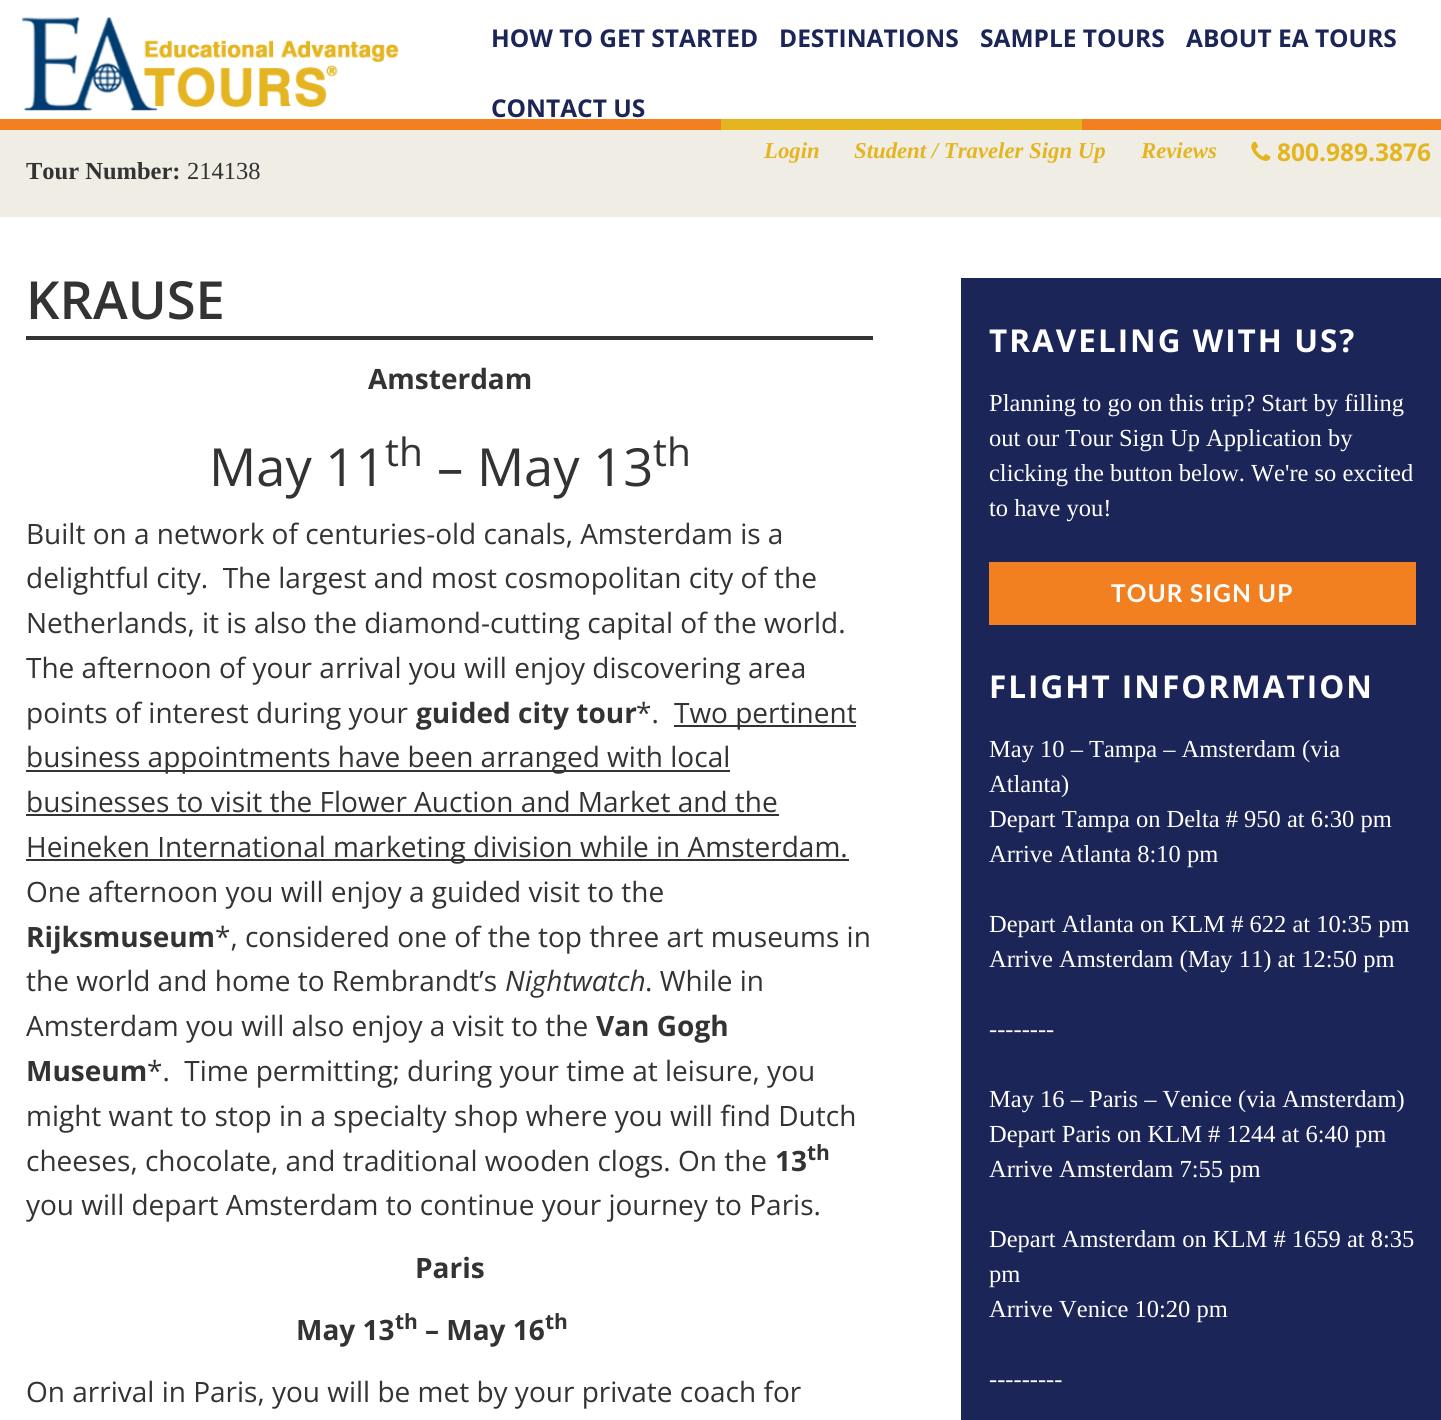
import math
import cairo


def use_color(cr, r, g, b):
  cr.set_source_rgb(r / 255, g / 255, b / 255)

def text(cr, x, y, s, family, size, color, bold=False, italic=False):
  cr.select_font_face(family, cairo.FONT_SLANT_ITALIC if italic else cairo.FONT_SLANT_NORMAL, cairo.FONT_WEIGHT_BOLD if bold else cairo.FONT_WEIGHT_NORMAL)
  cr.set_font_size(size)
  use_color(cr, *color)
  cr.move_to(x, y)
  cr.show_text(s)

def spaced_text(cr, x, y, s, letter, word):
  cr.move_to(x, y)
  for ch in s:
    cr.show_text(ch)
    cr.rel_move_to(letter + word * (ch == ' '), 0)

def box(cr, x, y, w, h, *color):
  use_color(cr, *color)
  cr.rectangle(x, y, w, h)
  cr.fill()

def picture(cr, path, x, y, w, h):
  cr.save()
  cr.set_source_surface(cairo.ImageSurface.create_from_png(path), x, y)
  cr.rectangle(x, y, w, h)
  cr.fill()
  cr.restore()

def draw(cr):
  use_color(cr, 255, 255, 255)
  cr.paint()
  picture(cr, "img_01.png", 22, 17, 377, 94)
  box(cr, 0, 130, 1441, 87, 239, 237, 228)
  picture(cr, "img_02.png", 1251, 141, 20, 20)
  box(cr, 0, 119, 721, 11, 242, 128, 33)
  box(cr, 721, 119, 361, 11, 229, 181, 33)
  box(cr, 1082, 119, 359, 11, 242, 128, 33)
  box(cr, 26, 336, 847, 4, 51, 51, 51)
  box(cr, 674, 725, 182, 2, 51, 51, 51)
  box(cr, 26, 770, 704, 2, 51, 51, 51)
  box(cr, 26, 814, 753, 2, 51, 51, 51)
  box(cr, 26, 859, 823, 2, 51, 51, 51)
  box(cr, 961, 278, 480, 1142, 28, 37, 87)
  box(cr, 989, 562, 427, 63, 242, 128, 33)
  text(cr, 491, 47, "HOW TO GET STARTED", "Open Sans", 24.5, (28, 37, 87), bold=True)
  text(cr, 779, 47, "DESTINATIONS", "Open Sans", 24.5, (28, 37, 87), bold=True)
  text(cr, 980, 47, "SAMPLE TOURS", "Open Sans", 24.5, (28, 37, 87), bold=True)
  text(cr, 1186, 47, "ABOUT EA TOURS", "Open Sans", 24.5, (28, 37, 87), bold=True)
  text(cr, 491, 117, "CONTACT US", "Open Sans", 24.5, (28, 37, 87), bold=True)
  text(cr, 764, 158, "Login", "Liberation Serif", 22.75, (229, 181, 33), bold=True, italic=True)
  text(cr, 854, 158, "Student / Traveler Sign Up", "Liberation Serif", 22.75, (229, 181, 33), bold=True, italic=True)
  text(cr, 1141, 158, "Reviews", "Liberation Serif", 22.75, (229, 181, 33), bold=True, italic=True)
  text(cr, 1277, 161, "800.989.3876", "Open Sans", 24.5, (229, 181, 33), bold=True)
  text(cr, 26, 179, "Tour Number:", "Liberation Serif", 24.5, (51, 51, 51), bold=True)
  text(cr, 187, 179, "214138", "Liberation Serif", 24.5, (51, 51, 51))
  text(cr, 26, 319, "KRAUSE", "Open Sans SemiBold", 52.5, (51, 51, 51))
  text(cr, 368, 389, "Amsterdam", "Open Sans", 28, (51, 51, 51), bold=True)
  text(cr, 209, 486, "May 11", "Open Sans", 52.5, (51, 51, 51))
  text(cr, 385, 466, "th", "Open Sans", 39, (51, 51, 51))
  text(cr, 437, 486, "– May 13", "Open Sans", 52.5, (51, 51, 51))
  text(cr, 653, 466, "th", "Open Sans", 39, (51, 51, 51))
  text(cr, 26, 544, "Built on a network of centuries-old canals, Amsterdam is a", "Open Sans", 28, (51, 51, 51))
  text(cr, 26, 588, "delightful city.  The largest and most cosmopolitan city of the", "Open Sans", 28, (51, 51, 51))
  text(cr, 26, 633, "Netherlands, it is also the diamond-cutting capital of the world.", "Open Sans", 28, (51, 51, 51))
  text(cr, 26, 678, "The afternoon of your arrival you will enjoy discovering area", "Open Sans", 28, (51, 51, 51))
  text(cr, 26, 723, "points of interest during your", "Open Sans", 28, (51, 51, 51))
  text(cr, 416, 723, "guided city tour", "Open Sans", 28, (51, 51, 51), bold=True)
  text(cr, 636, 723, "*.", "Open Sans", 28, (51, 51, 51))
  text(cr, 674, 723, "Two pertinent", "Open Sans", 28, (51, 51, 51))
  text(cr, 26, 767, "business appointments have been arranged with local", "Open Sans", 28, (51, 51, 51))
  text(cr, 26, 812, "businesses to visit the Flower Auction and Market and the", "Open Sans", 28, (51, 51, 51))
  text(cr, 26, 857, "Heineken International marketing division while in Amsterdam.", "Open Sans", 28, (51, 51, 51))
  text(cr, 26, 902, "One afternoon you will enjoy a guided visit to the", "Open Sans", 28, (51, 51, 51))
  text(cr, 26, 947, "Rijksmuseum", "Open Sans", 28, (51, 51, 51), bold=True)
  text(cr, 215, 947, "*, considered one of the top three art museums in", "Open Sans", 28, (51, 51, 51))
  text(cr, 26, 991, "the world and home to Rembrandt’s", "Open Sans", 28, (51, 51, 51))
  text(cr, 505, 991, "Nightwatch", "Open Sans", 28, (51, 51, 51), italic=True)
  text(cr, 645, 991, ". While in", "Open Sans", 28, (51, 51, 51))
  text(cr, 26, 1036, "Amsterdam you will also enjoy a visit to the", "Open Sans", 28, (51, 51, 51))
  text(cr, 596, 1036, "Van Gogh", "Open Sans", 28, (51, 51, 51), bold=True)
  text(cr, 26, 1081, "Museum", "Open Sans", 28, (51, 51, 51), bold=True)
  text(cr, 147, 1081, "*.  Time permitting; during your time at leisure, you", "Open Sans", 28, (51, 51, 51))
  text(cr, 26, 1126, "might want to stop in a specialty shop where you will find Dutch", "Open Sans", 28, (51, 51, 51))
  text(cr, 26, 1171, "cheeses, chocolate, and traditional wooden clogs. On the", "Open Sans", 28, (51, 51, 51))
  text(cr, 775, 1171, "13", "Open Sans", 28, (51, 51, 51), bold=True)
  text(cr, 807, 1160, "th", "Open Sans", 21, (51, 51, 51), bold=True)
  text(cr, 26, 1215, "you will depart Amsterdam to continue your journey to Paris.", "Open Sans", 28, (51, 51, 51))
  text(cr, 415, 1278, "Paris", "Open Sans", 28, (51, 51, 51), bold=True)
  text(cr, 296, 1340, "May 13", "Open Sans", 28, (51, 51, 51), bold=True)
  text(cr, 395, 1329, "th", "Open Sans", 21, (51, 51, 51), bold=True)
  text(cr, 425, 1340, "– May 16", "Open Sans", 28, (51, 51, 51), bold=True)
  text(cr, 545, 1329, "th", "Open Sans", 21, (51, 51, 51), bold=True)
  text(cr, 26, 1402, "On arrival in Paris, you will be met by your private coach for", "Open Sans", 28, (51, 51, 51))
  cr.select_font_face("Open Sans", cairo.FONT_SLANT_NORMAL, cairo.FONT_WEIGHT_BOLD)
  cr.set_font_size(31.5)
  use_color(cr, 255, 255, 255)
  spaced_text(cr, 989, 352, "TRAVELING WITH US?", 2, 0)
  text(cr, 989, 411, "Planning to go on this trip? Start by filling", "Liberation Serif", 24.5, (255, 255, 255))
  text(cr, 989, 446, "out our Tour Sign Up Application by", "Liberation Serif", 24.5, (255, 255, 255))
  text(cr, 989, 481, "clicking the button below. We're so excited", "Liberation Serif", 24.5, (255, 255, 255))
  text(cr, 989, 516, "to have you!", "Liberation Serif", 24.5, (255, 255, 255))
  cr.select_font_face("Lato", cairo.FONT_SLANT_NORMAL, cairo.FONT_WEIGHT_BOLD)
  spaced_text(cr, 1111, 602, "TOUR SIGN UP", 1.25, 0)
  cr.select_font_face("Open Sans", cairo.FONT_SLANT_NORMAL, cairo.FONT_WEIGHT_BOLD)
  cr.set_font_size(31.5)
  spaced_text(cr, 989, 698, "FLIGHT INFORMATION", 2, 0)
  text(cr, 989, 757, "May 10 – Tampa – Amsterdam (via", "Liberation Serif", 24.5, (255, 255, 255))
  text(cr, 989, 792, "Atlanta)", "Liberation Serif", 24.5, (255, 255, 255))
  text(cr, 989, 827, "Depart Tampa on Delta # 950 at 6:30 pm", "Liberation Serif", 24.5, (255, 255, 255))
  text(cr, 989, 862, "Arrive Atlanta 8:10 pm", "Liberation Serif", 24.5, (255, 255, 255))
  text(cr, 989, 932, "Depart Atlanta on KLM # 622 at 10:35 pm", "Liberation Serif", 24.5, (255, 255, 255))
  text(cr, 989, 967, "Arrive Amsterdam (May 11) at 12:50 pm", "Liberation Serif", 24.5, (255, 255, 255))
  text(cr, 989, 1037, "--------", "Liberation Serif", 24.5, (255, 255, 255))
  text(cr, 989, 1107, "May 16 – Paris – Venice (via Amsterdam)", "Liberation Serif", 24.5, (255, 255, 255))
  text(cr, 989, 1142, "Depart Paris on KLM # 1244 at 6:40 pm", "Liberation Serif", 24.5, (255, 255, 255))
  text(cr, 989, 1177, "Arrive Amsterdam 7:55 pm", "Liberation Serif", 24.5, (255, 255, 255))
  text(cr, 989, 1247, "Depart Amsterdam on KLM # 1659 at 8:35", "Liberation Serif", 24.5, (255, 255, 255))
  text(cr, 989, 1282, "pm", "Liberation Serif", 24.5, (255, 255, 255))
  text(cr, 989, 1317, "Arrive Venice 10:20 pm", "Liberation Serif", 24.5, (255, 255, 255))
  text(cr, 989, 1387, "---------", "Liberation Serif", 24.5, (255, 255, 255))


surface = cairo.ImageSurface(cairo.FORMAT_RGB24, 1441, 1420)
cr = cairo.Context(surface)
options = cairo.FontOptions()
options.set_hint_metrics(cairo.HINT_METRICS_OFF)
options.set_hint_style(cairo.HINT_STYLE_NONE)
cr.set_font_options(options)
cr.set_miter_limit(4)
draw(cr)
surface.write_to_png("out.png")
